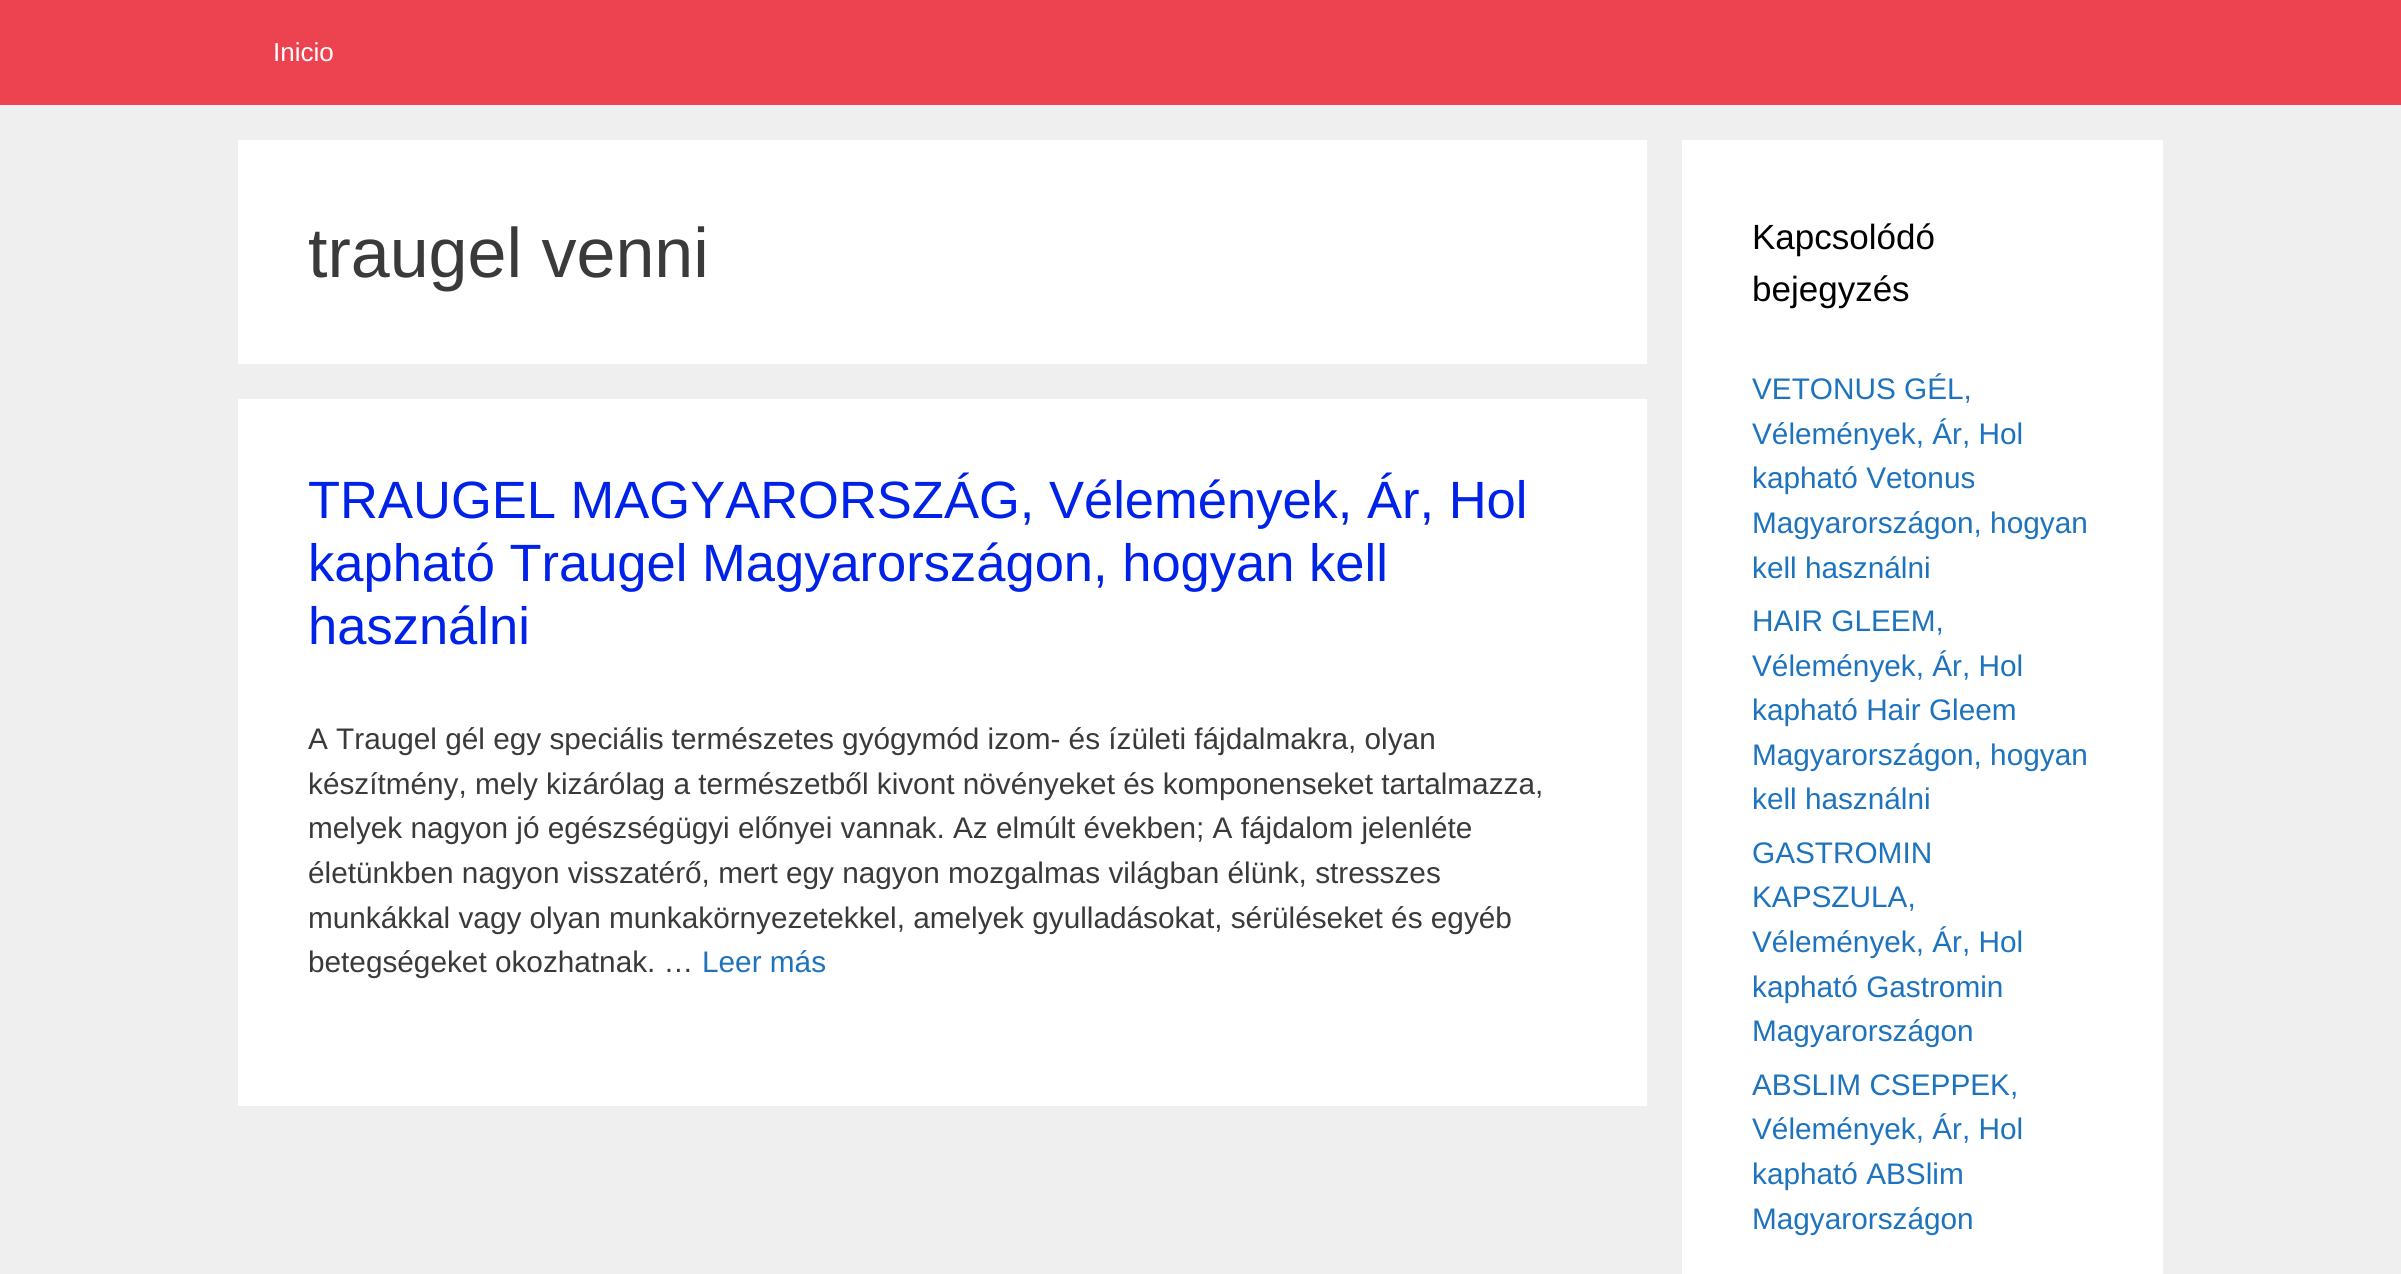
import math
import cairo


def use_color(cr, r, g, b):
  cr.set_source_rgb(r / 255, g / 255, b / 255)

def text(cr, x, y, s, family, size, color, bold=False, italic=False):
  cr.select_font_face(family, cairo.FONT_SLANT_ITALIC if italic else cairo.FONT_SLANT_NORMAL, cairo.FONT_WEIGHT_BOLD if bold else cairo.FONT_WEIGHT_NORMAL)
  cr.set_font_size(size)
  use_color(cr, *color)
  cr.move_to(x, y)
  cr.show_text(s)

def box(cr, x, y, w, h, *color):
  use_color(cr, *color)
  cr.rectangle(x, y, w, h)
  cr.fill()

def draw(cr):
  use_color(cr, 239, 239, 239)
  cr.paint()
  box(cr, 0, 0, 2401, 105, 237, 66, 80)
  box(cr, 238, 140, 1409, 224, 255, 255, 255)
  box(cr, 238, 399, 1409, 707, 255, 255, 255)
  box(cr, 1682, 140, 481, 1134, 255, 255, 255)
  text(cr, 273, 61, "Inicio", "Liberation Sans", 26, (255, 255, 255))
  text(cr, 308, 277, "traugel venni", "Liberation Sans", 70, (58, 58, 58))
  text(cr, 308, 518, "TRAUGEL MAGYARORSZÁG, Vélemények, Ár, Hol", "Liberation Sans", 52.5, (0, 34, 232))
  text(cr, 308, 581, "kapható Traugel Magyarországon, hogyan kell", "Liberation Sans", 52.5, (0, 34, 232))
  text(cr, 308, 644, "használni", "Liberation Sans", 52.5, (0, 34, 232))
  text(cr, 308, 749, "A Traugel gél egy speciális természetes gyógymód izom- és ízületi fájdalmakra, olyan", "Liberation Sans", 29.75, (58, 58, 58))
  text(cr, 308, 794, "készítmény, mely kizárólag a természetből kivont növényeket és komponenseket tartalmazza,", "Liberation Sans", 29.75, (58, 58, 58))
  text(cr, 308, 838, "melyek nagyon jó egészségügyi előnyei vannak. Az elmúlt években; A fájdalom jelenléte", "Liberation Sans", 29.75, (58, 58, 58))
  text(cr, 308, 883, "életünkben nagyon visszatérő, mert egy nagyon mozgalmas világban élünk, stresszes", "Liberation Sans", 29.75, (58, 58, 58))
  text(cr, 308, 928, "munkákkal vagy olyan munkakörnyezetekkel, amelyek gyulladásokat, sérüléseket és egyéb", "Liberation Sans", 29.75, (58, 58, 58))
  text(cr, 308, 972, "betegségeket okozhatnak. …", "Liberation Sans", 29.75, (58, 58, 58))
  text(cr, 702, 972, "Leer más", "Liberation Sans", 29.75, (30, 115, 190))
  text(cr, 1752, 249, "Kapcsolódó", "Liberation Sans", 35, (0, 0, 0))
  text(cr, 1752, 301, "bejegyzés", "Liberation Sans", 35, (0, 0, 0))
  text(cr, 1752, 399, "VETONUS GÉL,", "Liberation Sans", 29.75, (30, 115, 190))
  text(cr, 1752, 444, "Vélemények, Ár, Hol", "Liberation Sans", 29.75, (30, 115, 190))
  text(cr, 1752, 488, "kapható Vetonus", "Liberation Sans", 29.75, (30, 115, 190))
  text(cr, 1752, 533, "Magyarországon, hogyan", "Liberation Sans", 29.75, (30, 115, 190))
  text(cr, 1752, 578, "kell használni", "Liberation Sans", 29.75, (30, 115, 190))
  text(cr, 1752, 631, "HAIR GLEEM,", "Liberation Sans", 29.75, (30, 115, 190))
  text(cr, 1752, 676, "Vélemények, Ár, Hol", "Liberation Sans", 29.75, (30, 115, 190))
  text(cr, 1752, 720, "kapható Hair Gleem", "Liberation Sans", 29.75, (30, 115, 190))
  text(cr, 1752, 765, "Magyarországon, hogyan", "Liberation Sans", 29.75, (30, 115, 190))
  text(cr, 1752, 809, "kell használni", "Liberation Sans", 29.75, (30, 115, 190))
  text(cr, 1752, 863, "GASTROMIN", "Liberation Sans", 29.75, (30, 115, 190))
  text(cr, 1752, 907, "KAPSZULA,", "Liberation Sans", 29.75, (30, 115, 190))
  text(cr, 1752, 952, "Vélemények, Ár, Hol", "Liberation Sans", 29.75, (30, 115, 190))
  text(cr, 1752, 997, "kapható Gastromin", "Liberation Sans", 29.75, (30, 115, 190))
  text(cr, 1752, 1041, "Magyarországon", "Liberation Sans", 29.75, (30, 115, 190))
  text(cr, 1752, 1095, "ABSLIM CSEPPEK,", "Liberation Sans", 29.75, (30, 115, 190))
  text(cr, 1752, 1139, "Vélemények, Ár, Hol", "Liberation Sans", 29.75, (30, 115, 190))
  text(cr, 1752, 1184, "kapható ABSlim", "Liberation Sans", 29.75, (30, 115, 190))
  text(cr, 1752, 1229, "Magyarországon", "Liberation Sans", 29.75, (30, 115, 190))


surface = cairo.ImageSurface(cairo.FORMAT_RGB24, 2401, 1274)
cr = cairo.Context(surface)
options = cairo.FontOptions()
options.set_hint_metrics(cairo.HINT_METRICS_OFF)
options.set_hint_style(cairo.HINT_STYLE_NONE)
cr.set_font_options(options)
cr.set_miter_limit(4)
draw(cr)
surface.write_to_png("out.png")
